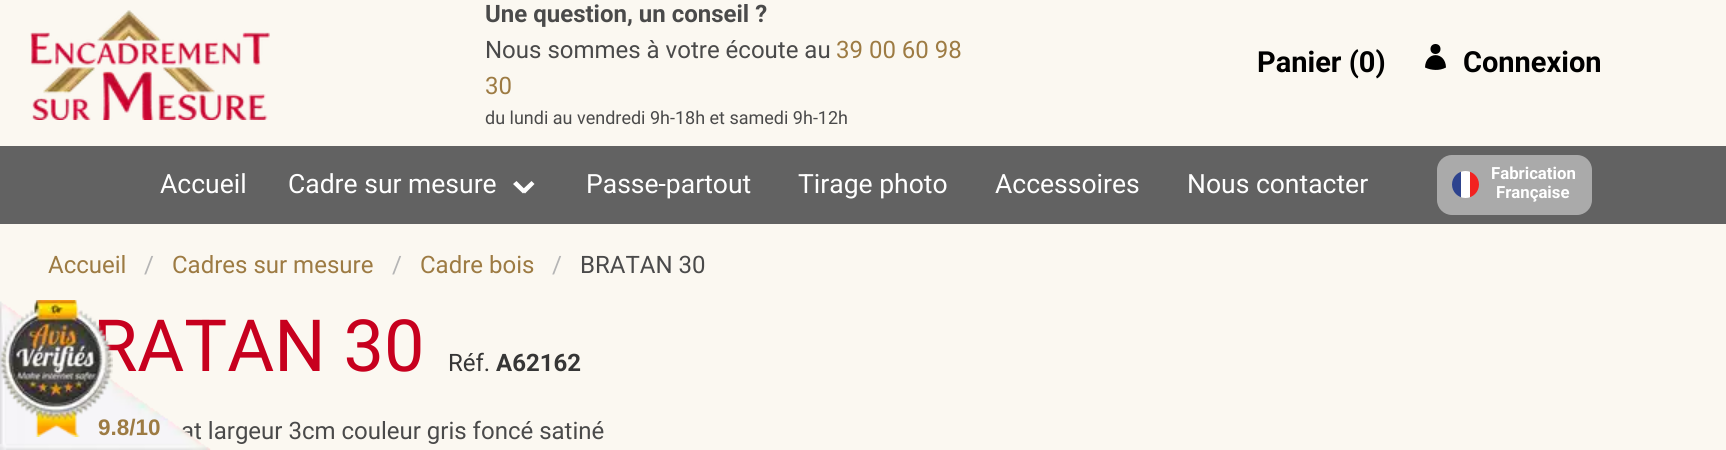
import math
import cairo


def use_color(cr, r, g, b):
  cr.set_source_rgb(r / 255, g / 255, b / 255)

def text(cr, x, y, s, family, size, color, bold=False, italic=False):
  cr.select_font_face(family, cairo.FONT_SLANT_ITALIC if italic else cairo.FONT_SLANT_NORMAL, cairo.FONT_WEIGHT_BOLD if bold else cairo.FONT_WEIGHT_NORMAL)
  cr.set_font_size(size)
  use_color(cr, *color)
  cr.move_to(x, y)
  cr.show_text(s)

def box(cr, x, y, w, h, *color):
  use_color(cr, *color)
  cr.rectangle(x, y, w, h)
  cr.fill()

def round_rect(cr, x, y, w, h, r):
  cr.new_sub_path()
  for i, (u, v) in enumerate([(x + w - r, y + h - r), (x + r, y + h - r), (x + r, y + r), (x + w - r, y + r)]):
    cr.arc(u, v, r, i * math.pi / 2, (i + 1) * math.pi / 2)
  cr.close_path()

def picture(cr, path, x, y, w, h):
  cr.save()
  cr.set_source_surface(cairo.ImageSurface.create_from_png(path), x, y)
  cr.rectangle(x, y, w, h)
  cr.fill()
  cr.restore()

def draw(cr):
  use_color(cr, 251, 248, 241)
  cr.paint()
  picture(cr, "img_01.png", 30, 10, 240, 110)
  use_color(cr, 0, 0, 0)
  cr.arc(1435.5, 49, 5, 0, 2 * math.pi)
  cr.fill()
  cr.new_path()
  cr.move_to(1446, 67.5)
  cr.curve_to(1445.5, 51, 1425.5, 51, 1425, 67.5)
  cr.curve_to(1431.5, 70.5, 1439.5, 71, 1446, 67.5)
  cr.close_path()
  cr.fill()
  box(cr, 0, 146, 1726, 78, 98, 98, 98)
  use_color(cr, 255, 255, 255)
  cr.new_path()
  cr.move_to(521.5, 190.5)
  cr.line_to(531.5, 181)
  cr.line_to(534.5, 184)
  cr.line_to(525, 193.5)
  cr.close_path()
  cr.fill()
  cr.new_path()
  cr.move_to(513, 184)
  cr.line_to(516.5, 181)
  cr.line_to(526, 190.5)
  cr.line_to(523, 193.5)
  cr.close_path()
  cr.fill()
  use_color(cr, 170, 170, 170)
  round_rect(cr, 1437, 155, 155, 60, 15)
  cr.fill()
  cr.save()
  round_rect(cr, 1452, 171, 27, 27, 13.5)
  cr.clip()
  box(cr, 1452, 171, 9, 27, 45, 67, 142)
  box(cr, 1461, 171, 9, 27, 255, 255, 255)
  box(cr, 1470, 171, 9, 27, 243, 34, 32)
  cr.restore()
  text(cr, 485, 22, "Une question, un conseil ?", "Roboto", 24, (74, 74, 74), bold=True)
  text(cr, 485, 58, "Nous sommes à votre écoute au", "Roboto", 24, (74, 74, 74))
  text(cr, 836, 58, "39 00 60 98", "Roboto", 24, (157, 123, 67))
  text(cr, 485, 94, "30", "Roboto", 24, (157, 123, 67))
  text(cr, 485, 124, "du lundi au vendredi 9h-18h et samedi 9h-12h", "Roboto", 18, (74, 74, 74))
  text(cr, 1257, 72, "Panier (0)", "Roboto", 29, (0, 0, 0), bold=True)
  text(cr, 1463, 72, "Connexion", "Roboto", 29, (0, 0, 0), bold=True)
  text(cr, 160, 193, "Accueil", "Roboto", 26.5, (255, 255, 255))
  text(cr, 288, 193, "Cadre sur mesure", "Roboto", 26.5, (255, 255, 255))
  text(cr, 586, 193, "Passe-partout", "Roboto", 26.5, (255, 255, 255))
  text(cr, 798, 193, "Tirage photo", "Roboto", 26.5, (255, 255, 255))
  text(cr, 995, 193, "Accessoires", "Roboto", 26.5, (255, 255, 255))
  text(cr, 1187, 193, "Nous contacter", "Roboto", 26.5, (255, 255, 255))
  text(cr, 1491, 179, "Fabrication", "Roboto", 16.75, (255, 255, 255), bold=True)
  text(cr, 1496, 198, "Française", "Roboto", 16.75, (255, 255, 255), bold=True)
  text(cr, 48, 273, "Accueil", "Roboto", 24, (157, 123, 67))
  text(cr, 144, 273, "/", "Roboto", 24, (181, 181, 181))
  text(cr, 172, 273, "Cadres sur mesure", "Roboto", 24, (157, 123, 67))
  text(cr, 392, 273, "/", "Roboto", 24, (181, 181, 181))
  text(cr, 420, 273, "Cadre bois", "Roboto", 24, (157, 123, 67))
  text(cr, 552, 273, "/", "Roboto", 24, (181, 181, 181))
  text(cr, 580, 273, "BRATAN 30", "Roboto", 24, (74, 74, 74))
  text(cr, 93, 371, "RATAN 30", "Roboto", 72, (199, 0, 30))
  text(cr, 448, 371, "Réf.", "Roboto", 24, (54, 54, 54))
  text(cr, 496, 371, "A62162", "Roboto", 24, (54, 54, 54), bold=True)
  text(cr, 181, 439, "at largeur 3cm couleur gris foncé satiné", "Roboto", 24, (74, 74, 74))
  picture(cr, "img_03.png", 0, 301, 211, 149)
  picture(cr, "img_02.png", 0, 300, 113, 137)
  text(cr, 98, 435, "9.8/10", "Liberation Sans", 22.5, (157, 123, 67), bold=True)


surface = cairo.ImageSurface(cairo.FORMAT_RGB24, 1726, 450)
cr = cairo.Context(surface)
options = cairo.FontOptions()
options.set_hint_metrics(cairo.HINT_METRICS_OFF)
options.set_hint_style(cairo.HINT_STYLE_NONE)
cr.set_font_options(options)
cr.set_miter_limit(4)
draw(cr)
surface.write_to_png("out.png")
